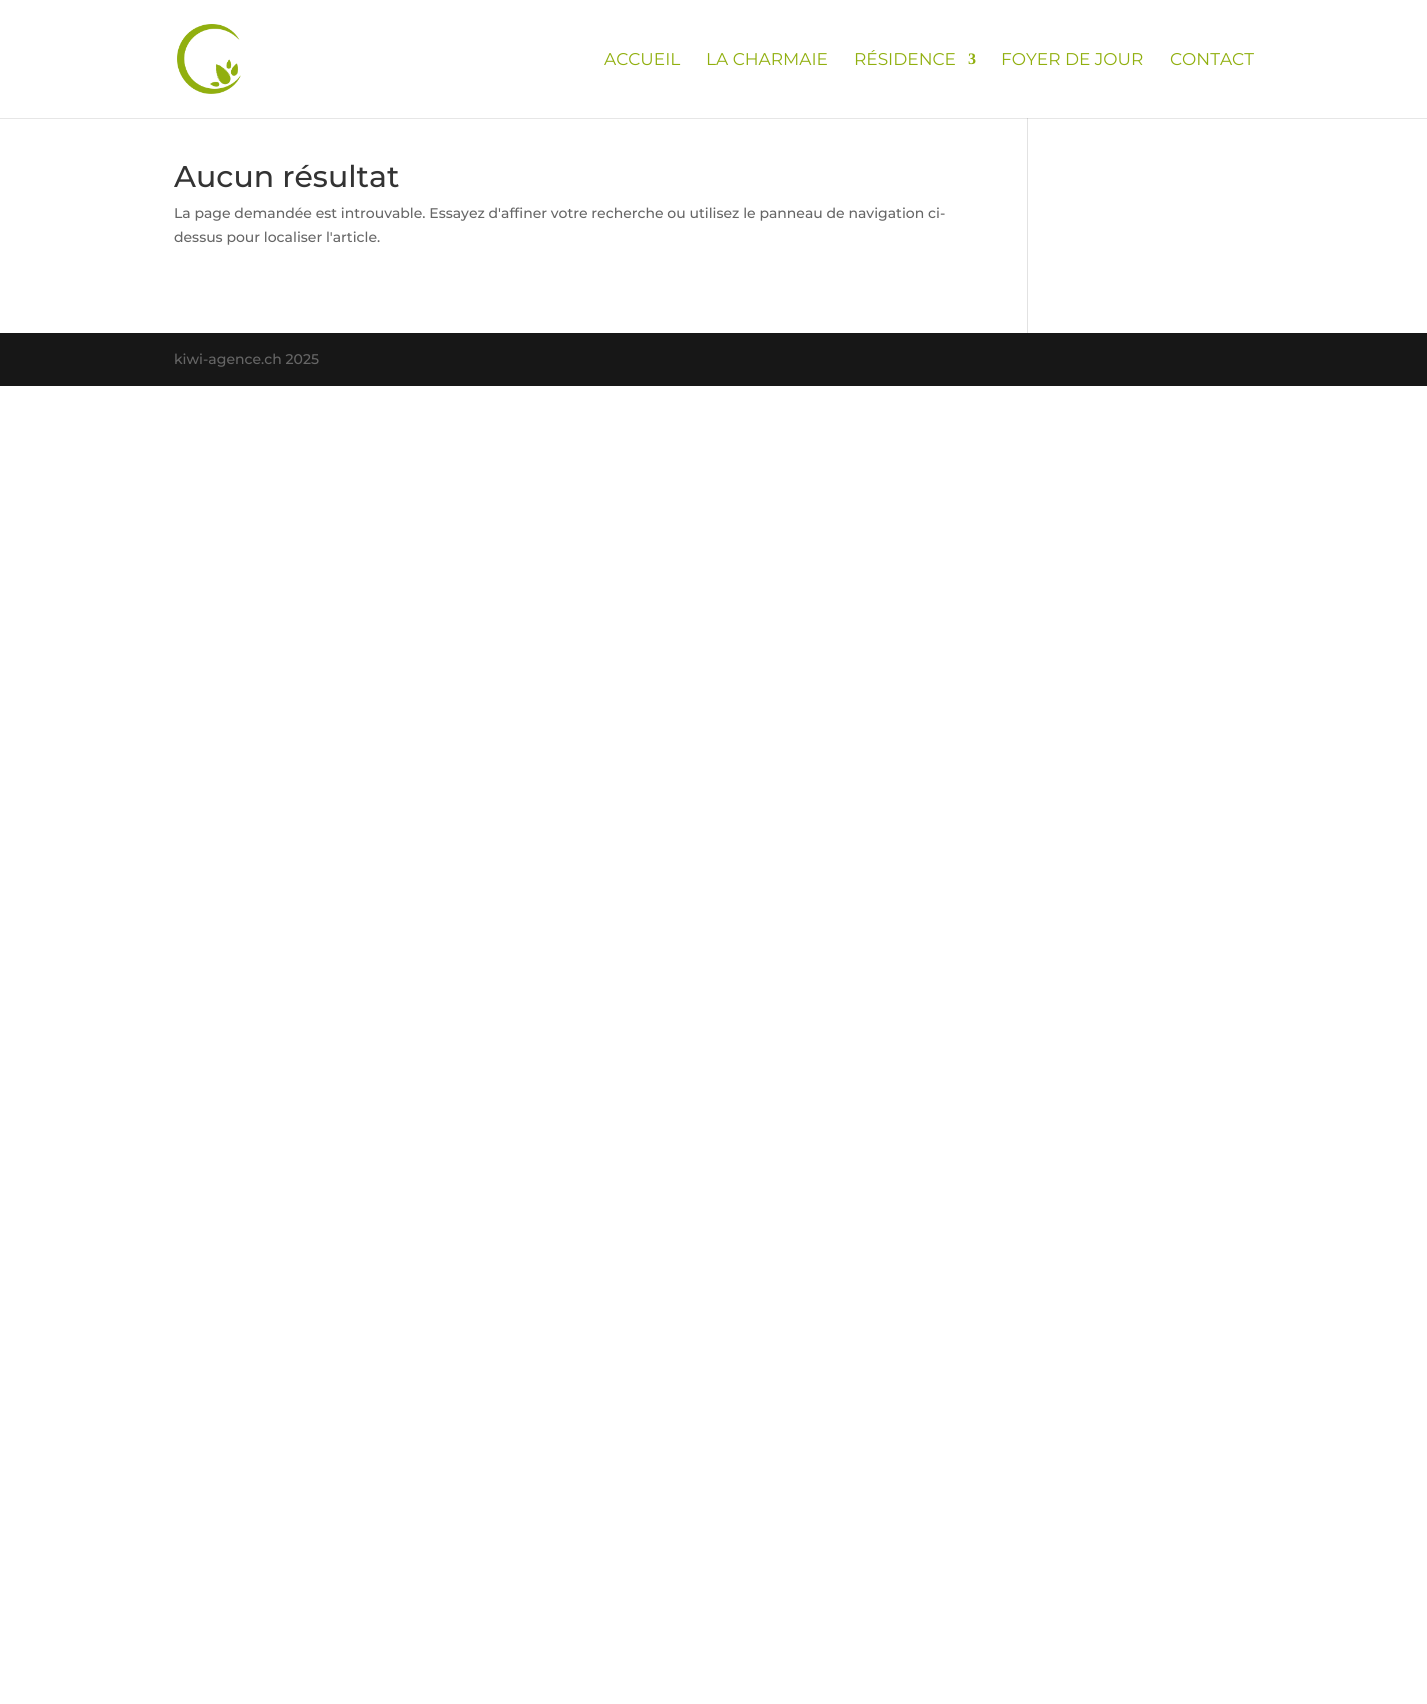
import math
import cairo


def use_color(cr, r, g, b):
  cr.set_source_rgb(r / 255, g / 255, b / 255)

def text(cr, x, y, s, family, size, color, bold=False, italic=False):
  cr.select_font_face(family, cairo.FONT_SLANT_ITALIC if italic else cairo.FONT_SLANT_NORMAL, cairo.FONT_WEIGHT_BOLD if bold else cairo.FONT_WEIGHT_NORMAL)
  cr.set_font_size(size)
  use_color(cr, *color)
  cr.move_to(x, y)
  cr.show_text(s)

def box(cr, x, y, w, h, *color):
  use_color(cr, *color)
  cr.rectangle(x, y, w, h)
  cr.fill()

def picture(cr, path, x, y, w, h):
  cr.save()
  cr.set_source_surface(cairo.ImageSurface.create_from_png(path), x, y)
  cr.rectangle(x, y, w, h)
  cr.fill()
  cr.restore()

def draw(cr):
  use_color(cr, 255, 255, 255)
  cr.paint()
  box(cr, 0, 118, 1427, 1, 230, 230, 230)
  picture(cr, "img_01.png", 177, 24, 64, 70)
  box(cr, 1027, 119, 1, 214, 226, 226, 226)
  box(cr, 1027, 118, 1, 1, 203, 203, 203)
  box(cr, 0, 333, 1427, 53, 23, 23, 23)
  text(cr, 604, 65, "ACCUEIL", "Montserrat", 17, (144, 175, 14))
  text(cr, 706, 65, "LA CHARMAIE", "Montserrat", 17, (144, 175, 14))
  text(cr, 854, 65, "RÉSIDENCE", "Montserrat", 17, (144, 175, 14))
  text(cr, 968, 64, "3", "Liberation Serif", 16, (144, 175, 14), bold=True)
  text(cr, 1001, 65, "FOYER DE JOUR", "Montserrat", 17, (144, 175, 14))
  text(cr, 1170, 65, "CONTACT", "Montserrat", 17, (144, 175, 14))
  text(cr, 174, 187, "Aucun résultat", "Montserrat Medium", 30, (51, 51, 51))
  text(cr, 174, 218, "La page demandée est introuvable. Essayez d'affiner votre recherche ou utilisez le panneau de navigation ci-", "Montserrat Medium", 14, (102, 102, 102))
  text(cr, 174, 242, "dessus pour localiser l'article.", "Montserrat Medium", 14, (102, 102, 102))
  text(cr, 174, 364, "kiwi-agence.ch 2025", "Montserrat Medium", 14, (102, 102, 102))


surface = cairo.ImageSurface(cairo.FORMAT_RGB24, 1427, 1704)
cr = cairo.Context(surface)
options = cairo.FontOptions()
options.set_hint_metrics(cairo.HINT_METRICS_OFF)
options.set_hint_style(cairo.HINT_STYLE_NONE)
cr.set_font_options(options)
cr.set_miter_limit(4)
draw(cr)
surface.write_to_png("out.png")
